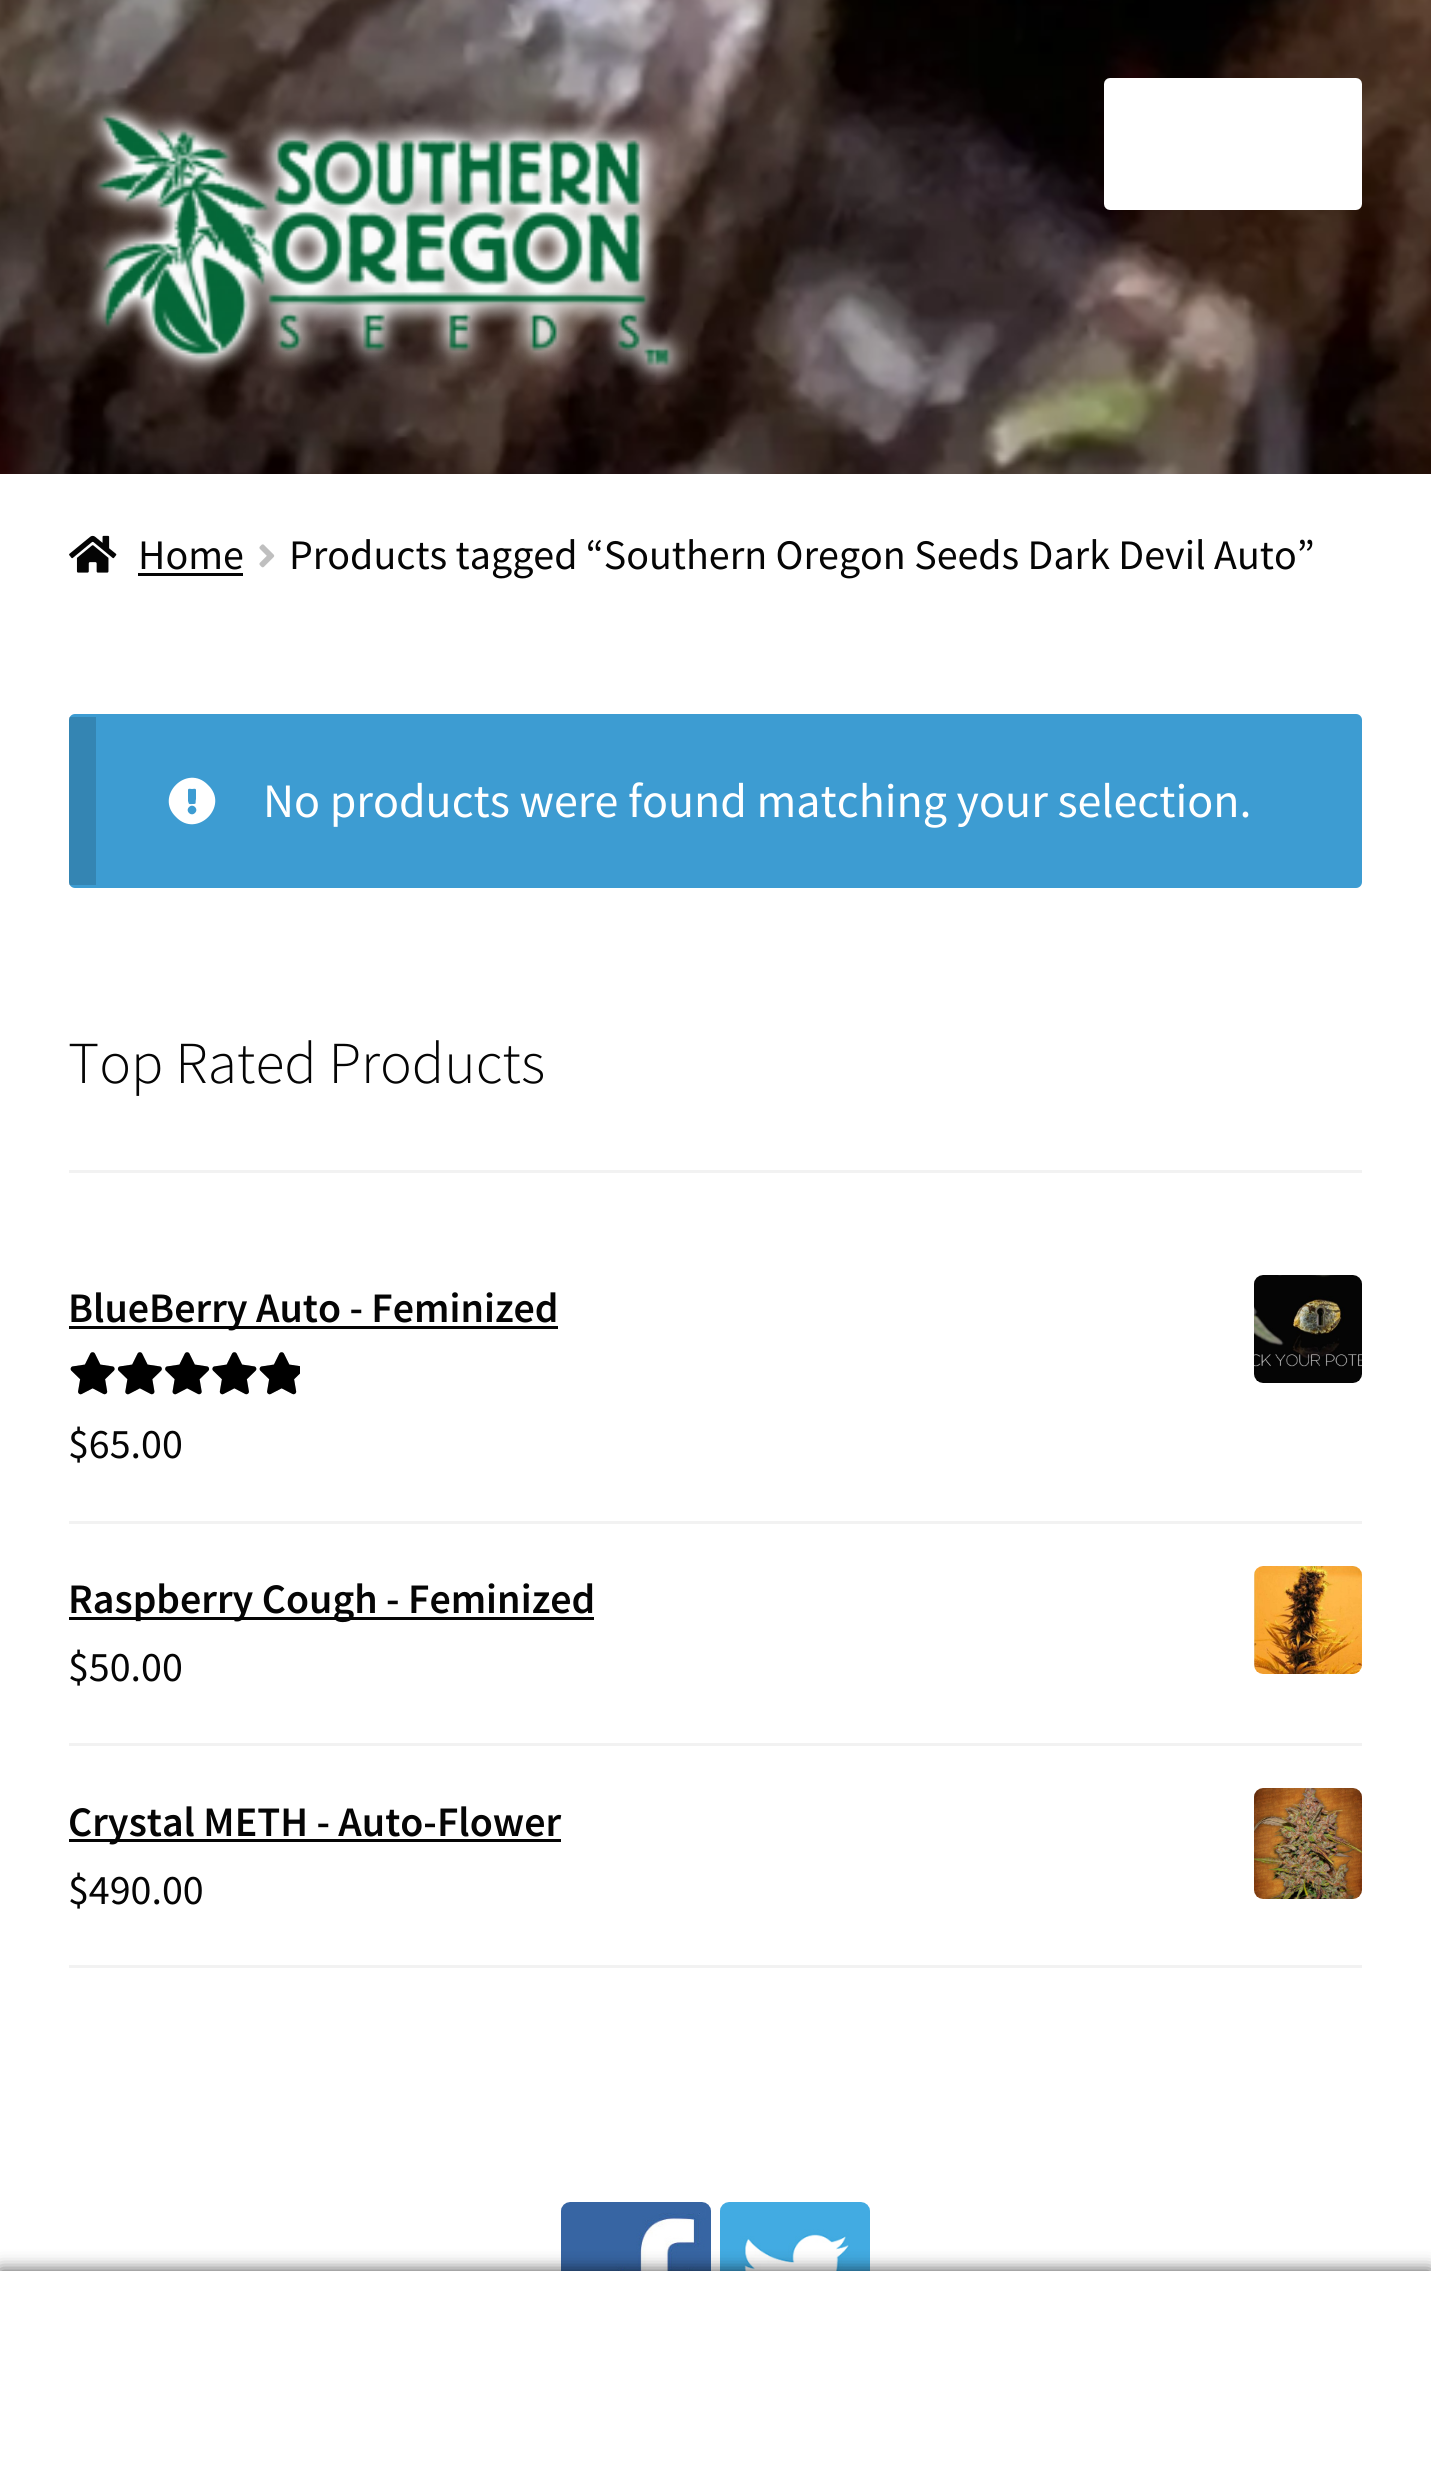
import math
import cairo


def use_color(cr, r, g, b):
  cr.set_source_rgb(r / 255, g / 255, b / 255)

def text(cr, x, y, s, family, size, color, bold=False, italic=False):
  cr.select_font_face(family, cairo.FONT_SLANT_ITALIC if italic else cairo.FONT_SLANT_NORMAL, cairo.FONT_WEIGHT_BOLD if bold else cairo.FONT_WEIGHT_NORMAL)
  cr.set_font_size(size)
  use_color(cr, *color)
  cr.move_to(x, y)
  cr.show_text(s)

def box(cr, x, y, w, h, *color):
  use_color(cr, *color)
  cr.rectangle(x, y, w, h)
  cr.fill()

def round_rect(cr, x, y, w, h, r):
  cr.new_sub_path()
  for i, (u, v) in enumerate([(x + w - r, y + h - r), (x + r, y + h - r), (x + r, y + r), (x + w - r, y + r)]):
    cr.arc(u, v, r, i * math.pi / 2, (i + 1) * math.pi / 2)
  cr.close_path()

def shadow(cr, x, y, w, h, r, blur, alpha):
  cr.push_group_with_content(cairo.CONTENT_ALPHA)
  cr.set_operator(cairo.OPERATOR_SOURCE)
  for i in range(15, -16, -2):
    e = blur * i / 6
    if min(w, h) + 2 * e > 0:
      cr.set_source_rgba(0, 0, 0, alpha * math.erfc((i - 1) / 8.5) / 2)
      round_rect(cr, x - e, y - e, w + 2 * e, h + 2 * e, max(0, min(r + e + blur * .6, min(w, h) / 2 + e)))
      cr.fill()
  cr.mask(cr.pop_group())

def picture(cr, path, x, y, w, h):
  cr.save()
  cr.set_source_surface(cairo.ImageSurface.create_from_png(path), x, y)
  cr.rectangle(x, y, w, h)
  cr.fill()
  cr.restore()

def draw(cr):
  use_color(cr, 255, 255, 255)
  cr.paint()
  picture(cr, "img_01.png", 0, 0, 1431, 474)
  picture(cr, "img_02.png", 82, 97, 606, 288)
  use_color(cr, 255, 255, 255)
  round_rect(cr, 1107, 81, 252, 126, 3)
  cr.fill_preserve()
  cr.set_line_width(6)
  cr.stroke()
  picture(cr, "img_03.png", 69, 535, 48, 38)
  box(cr, 138, 573, 105, 3, 5, 5, 5)
  picture(cr, "img_04.png", 259, 544, 16, 24)
  use_color(cr, 61, 156, 210)
  round_rect(cr, 69, 714, 1293, 174, 6)
  cr.fill()
  cr.set_source_rgba(0, 0, 0, 0.15)
  cr.rectangle(69, 717, 27, 168)
  cr.fill()
  use_color(cr, 255, 255, 255)
  cr.new_path()
  cr.move_to(208, 785)
  cr.curve_to(230, 806, 197, 839, 176, 817)
  cr.curve_to(154, 796, 187, 763, 208, 785)
  cr.close_path()
  cr.move_to(195, 807)
  cr.curve_to(191, 803, 185, 809, 189, 813)
  cr.curve_to(193, 817, 199, 811, 195, 807)
  cr.close_path()
  cr.move_to(188, 790)
  cr.line_to(188, 801)
  cr.curve_to(189, 805, 189, 804, 193, 804)
  cr.curve_to(197, 804, 195, 803, 196, 799)
  cr.line_to(196, 790)
  cr.curve_to(196, 788, 193, 789, 192, 789)
  cr.curve_to(191, 789, 188, 788, 188, 790)
  cr.close_path()
  cr.fill()
  box(cr, 69, 1170, 1293, 3, 242, 242, 242)
  box(cr, 69, 1521, 1293, 3, 242, 242, 242)
  box(cr, 69, 1326, 489, 3, 5, 5, 5)
  picture(cr, "img_05.png", 1254, 1275, 108, 108)
  picture(cr, "img_06.png", 70, 1352, 230, 43)
  picture(cr, "img_07.png", 70, 1352, 230, 43)
  box(cr, 69, 1743, 1293, 3, 242, 242, 242)
  box(cr, 69, 1617, 525, 3, 5, 5, 5)
  picture(cr, "img_08.png", 1254, 1566, 108, 108)
  box(cr, 69, 1965, 1293, 3, 242, 242, 242)
  box(cr, 69, 1839, 492, 3, 5, 5, 5)
  picture(cr, "img_09.png", 1254, 1788, 108, 111)
  picture(cr, "img_10.png", 561, 2202, 150, 69)
  picture(cr, "img_11.png", 720, 2202, 150, 69)
  use_color(cr, 0, 0, 0)
  shadow(cr, 0, 2271, 1431, 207, 0, 9, 0.7)
  box(cr, 0, 2271, 1431, 3, 255, 255, 255)
  box(cr, 0, 2274, 1431, 202, 255, 255, 255)
  text(cr, 138, 569, "Home", "Source Sans Pro", 42, (5, 5, 5))
  text(cr, 289, 569, "Products tagged “Southern Oregon Seeds Dark Devil Auto”", "Source Sans Pro", 42, (5, 5, 5))
  text(cr, 263, 817, "No products were found matching your selection.", "Source Sans Pro", 48, (255, 255, 255))
  text(cr, 68, 1083, "Top Rated Products", "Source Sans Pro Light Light", 59.5, (5, 5, 5))
  text(cr, 68, 1322, "BlueBerry Auto - Feminized", "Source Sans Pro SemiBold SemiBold", 42, (5, 5, 5))
  text(cr, 68, 1458, "$65.00", "Source Sans Pro", 42, (5, 5, 5))
  text(cr, 68, 1613, "Raspberry Cough - Feminized", "Source Sans Pro SemiBold SemiBold", 42, (5, 5, 5))
  text(cr, 68, 1681, "$50.00", "Source Sans Pro", 42, (5, 5, 5))
  text(cr, 68, 1836, "Crystal METH - Auto-Flower", "Source Sans Pro SemiBold SemiBold", 42, (5, 5, 5))
  text(cr, 68, 1904, "$490.00", "Source Sans Pro", 42, (5, 5, 5))


surface = cairo.ImageSurface(cairo.FORMAT_RGB24, 1431, 2476)
cr = cairo.Context(surface)
options = cairo.FontOptions()
options.set_hint_metrics(cairo.HINT_METRICS_OFF)
options.set_hint_style(cairo.HINT_STYLE_NONE)
cr.set_font_options(options)
cr.set_miter_limit(4)
draw(cr)
surface.write_to_png("out.png")
